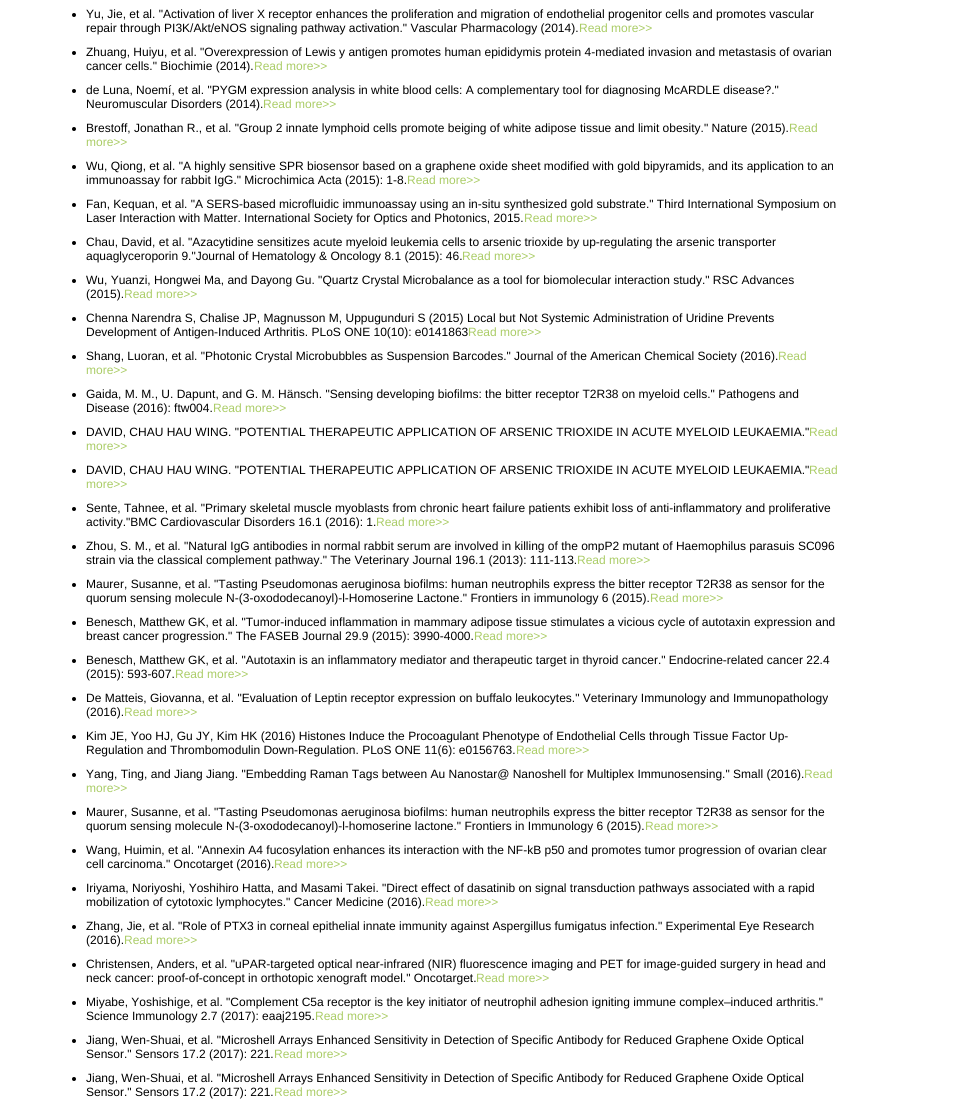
import math
import cairo


def use_color(cr, r, g, b):
  cr.set_source_rgb(r / 255, g / 255, b / 255)

def text(cr, x, y, s, family, size, color, bold=False, italic=False):
  cr.select_font_face(family, cairo.FONT_SLANT_ITALIC if italic else cairo.FONT_SLANT_NORMAL, cairo.FONT_WEIGHT_BOLD if bold else cairo.FONT_WEIGHT_NORMAL)
  cr.set_font_size(size)
  use_color(cr, *color)
  cr.move_to(x, y)
  cr.show_text(s)

def draw(cr):
  use_color(cr, 255, 255, 255)
  cr.paint()
  use_color(cr, 0, 0, 0)
  cr.arc(74, 15, 2, 0, 2 * math.pi)
  cr.fill()
  cr.arc(74, 53, 2, 0, 2 * math.pi)
  cr.fill()
  cr.arc(74, 91, 2, 0, 2 * math.pi)
  cr.fill()
  cr.arc(74, 129, 2, 0, 2 * math.pi)
  cr.fill()
  cr.arc(74, 167, 2, 0, 2 * math.pi)
  cr.fill()
  cr.arc(74, 205, 2, 0, 2 * math.pi)
  cr.fill()
  cr.arc(74, 243, 2, 0, 2 * math.pi)
  cr.fill()
  cr.arc(74, 281, 2, 0, 2 * math.pi)
  cr.fill()
  cr.arc(74, 319, 2, 0, 2 * math.pi)
  cr.fill()
  cr.arc(74, 357, 2, 0, 2 * math.pi)
  cr.fill()
  cr.arc(74, 395, 2, 0, 2 * math.pi)
  cr.fill()
  cr.arc(74, 433, 2, 0, 2 * math.pi)
  cr.fill()
  cr.arc(74, 471, 2, 0, 2 * math.pi)
  cr.fill()
  cr.arc(74, 509, 2, 0, 2 * math.pi)
  cr.fill()
  cr.arc(74, 547, 2, 0, 2 * math.pi)
  cr.fill()
  cr.arc(74, 585, 2, 0, 2 * math.pi)
  cr.fill()
  cr.arc(74, 623, 2, 0, 2 * math.pi)
  cr.fill()
  cr.arc(74, 661, 2, 0, 2 * math.pi)
  cr.fill()
  cr.arc(74, 699, 2, 0, 2 * math.pi)
  cr.fill()
  cr.arc(74, 737, 2, 0, 2 * math.pi)
  cr.fill()
  cr.arc(74, 775, 2, 0, 2 * math.pi)
  cr.fill()
  cr.arc(74, 813, 2, 0, 2 * math.pi)
  cr.fill()
  cr.arc(74, 851, 2, 0, 2 * math.pi)
  cr.fill()
  cr.arc(74, 889, 2, 0, 2 * math.pi)
  cr.fill()
  cr.arc(74, 927, 2, 0, 2 * math.pi)
  cr.fill()
  cr.arc(74, 965, 2, 0, 2 * math.pi)
  cr.fill()
  cr.arc(74, 1003, 2, 0, 2 * math.pi)
  cr.fill()
  cr.arc(74, 1041, 2, 0, 2 * math.pi)
  cr.fill()
  cr.arc(74, 1079, 2, 0, 2 * math.pi)
  cr.fill()
  text(cr, 86, 18, "Yu, Jie, et al. \"Activation of liver X receptor enhances the proliferation and migration of endothelial progenitor cells and promotes vascular", "Liberation Sans", 12, (0, 0, 0))
  text(cr, 86, 32, "repair through PI3K/Akt/eNOS signaling pathway activation.\" Vascular Pharmacology (2014).", "Liberation Sans", 12, (0, 0, 0))
  text(cr, 579, 32, "Read more>>", "Liberation Sans", 12, (170, 204, 102))
  text(cr, 86, 56, "Zhuang, Huiyu, et al. \"Overexpression of Lewis y antigen promotes human epididymis protein 4-mediated invasion and metastasis of ovarian", "Liberation Sans", 12, (0, 0, 0))
  text(cr, 86, 70, "cancer cells.\" Biochimie (2014).", "Liberation Sans", 12, (0, 0, 0))
  text(cr, 254, 70, "Read more>>", "Liberation Sans", 12, (170, 204, 102))
  text(cr, 86, 94, "de Luna, Noemí, et al. \"PYGM expression analysis in white blood cells: A complementary tool for diagnosing McARDLE disease?.\"", "Liberation Sans", 12, (0, 0, 0))
  text(cr, 86, 108, "Neuromuscular Disorders (2014).", "Liberation Sans", 12, (0, 0, 0))
  text(cr, 263, 108, "Read more>>", "Liberation Sans", 12, (170, 204, 102))
  text(cr, 86, 132, "Brestoff, Jonathan R., et al. \"Group 2 innate lymphoid cells promote beiging of white adipose tissue and limit obesity.\" Nature (2015).", "Liberation Sans", 12, (0, 0, 0))
  text(cr, 789, 132, "Read", "Liberation Sans", 12, (170, 204, 102))
  text(cr, 86, 146, "more>>", "Liberation Sans", 12, (170, 204, 102))
  text(cr, 86, 170, "Wu, Qiong, et al. \"A highly sensitive SPR biosensor based on a graphene oxide sheet modified with gold bipyramids, and its application to an", "Liberation Sans", 12, (0, 0, 0))
  text(cr, 86, 184, "immunoassay for rabbit IgG.\" Microchimica Acta (2015): 1-8.", "Liberation Sans", 12, (0, 0, 0))
  text(cr, 407, 184, "Read more>>", "Liberation Sans", 12, (170, 204, 102))
  text(cr, 86, 208, "Fan, Kequan, et al. \"A SERS-based microfluidic immunoassay using an in-situ synthesized gold substrate.\" Third International Symposium on", "Liberation Sans", 12, (0, 0, 0))
  text(cr, 86, 222, "Laser Interaction with Matter. International Society for Optics and Photonics, 2015.", "Liberation Sans", 12, (0, 0, 0))
  text(cr, 524, 222, "Read more>>", "Liberation Sans", 12, (170, 204, 102))
  text(cr, 86, 246, "Chau, David, et al. \"Azacytidine sensitizes acute myeloid leukemia cells to arsenic trioxide by up-regulating the arsenic transporter", "Liberation Sans", 12, (0, 0, 0))
  text(cr, 86, 260, "aquaglyceroporin 9.\"Journal of Hematology & Oncology 8.1 (2015): 46.", "Liberation Sans", 12, (0, 0, 0))
  text(cr, 462, 260, "Read more>>", "Liberation Sans", 12, (170, 204, 102))
  text(cr, 86, 284, "Wu, Yuanzi, Hongwei Ma, and Dayong Gu. \"Quartz Crystal Microbalance as a tool for biomolecular interaction study.\" RSC Advances", "Liberation Sans", 12, (0, 0, 0))
  text(cr, 86, 298, "(2015).", "Liberation Sans", 12, (0, 0, 0))
  text(cr, 124, 298, "Read more>>", "Liberation Sans", 12, (170, 204, 102))
  text(cr, 86, 322, "Chenna Narendra S, Chalise JP, Magnusson M, Uppugunduri S (2015) Local but Not Systemic Administration of Uridine Prevents", "Liberation Sans", 12, (0, 0, 0))
  text(cr, 86, 336, "Development of Antigen-Induced Arthritis. PLoS ONE 10(10): e0141863", "Liberation Sans", 12, (0, 0, 0))
  text(cr, 468, 336, "Read more>>", "Liberation Sans", 12, (170, 204, 102))
  text(cr, 86, 360, "Shang, Luoran, et al. \"Photonic Crystal Microbubbles as Suspension Barcodes.\" Journal of the American Chemical Society (2016).", "Liberation Sans", 12, (0, 0, 0))
  text(cr, 778, 360, "Read", "Liberation Sans", 12, (170, 204, 102))
  text(cr, 86, 374, "more>>", "Liberation Sans", 12, (170, 204, 102))
  text(cr, 86, 398, "Gaida, M. M., U. Dapunt, and G. M. Hänsch. \"Sensing developing biofilms: the bitter receptor T2R38 on myeloid cells.\" Pathogens and", "Liberation Sans", 12, (0, 0, 0))
  text(cr, 86, 412, "Disease (2016): ftw004.", "Liberation Sans", 12, (0, 0, 0))
  text(cr, 213, 412, "Read more>>", "Liberation Sans", 12, (170, 204, 102))
  text(cr, 86, 436, "DAVID, CHAU HAU WING. \"POTENTIAL THERAPEUTIC APPLICATION OF ARSENIC TRIOXIDE IN ACUTE MYELOID LEUKAEMIA.\"", "Liberation Sans", 12, (0, 0, 0))
  text(cr, 809, 436, "Read", "Liberation Sans", 12, (170, 204, 102))
  text(cr, 86, 450, "more>>", "Liberation Sans", 12, (170, 204, 102))
  text(cr, 86, 474, "DAVID, CHAU HAU WING. \"POTENTIAL THERAPEUTIC APPLICATION OF ARSENIC TRIOXIDE IN ACUTE MYELOID LEUKAEMIA.\"", "Liberation Sans", 12, (0, 0, 0))
  text(cr, 809, 474, "Read", "Liberation Sans", 12, (170, 204, 102))
  text(cr, 86, 488, "more>>", "Liberation Sans", 12, (170, 204, 102))
  text(cr, 86, 512, "Sente, Tahnee, et al. \"Primary skeletal muscle myoblasts from chronic heart failure patients exhibit loss of anti-inflammatory and proliferative", "Liberation Sans", 12, (0, 0, 0))
  text(cr, 86, 526, "activity.\"BMC Cardiovascular Disorders 16.1 (2016): 1.", "Liberation Sans", 12, (0, 0, 0))
  text(cr, 376, 526, "Read more>>", "Liberation Sans", 12, (170, 204, 102))
  text(cr, 86, 550, "Zhou, S. M., et al. \"Natural IgG antibodies in normal rabbit serum are involved in killing of the ompP2 mutant of Haemophilus parasuis SC096", "Liberation Sans", 12, (0, 0, 0))
  text(cr, 86, 564, "strain via the classical complement pathway.\" The Veterinary Journal 196.1 (2013): 111-113.", "Liberation Sans", 12, (0, 0, 0))
  text(cr, 577, 564, "Read more>>", "Liberation Sans", 12, (170, 204, 102))
  text(cr, 86, 588, "Maurer, Susanne, et al. \"Tasting Pseudomonas aeruginosa biofilms: human neutrophils express the bitter receptor T2R38 as sensor for the", "Liberation Sans", 12, (0, 0, 0))
  text(cr, 86, 602, "quorum sensing molecule N-(3-oxododecanoyl)-l-Homoserine Lactone.\" Frontiers in immunology 6 (2015).", "Liberation Sans", 12, (0, 0, 0))
  text(cr, 650, 602, "Read more>>", "Liberation Sans", 12, (170, 204, 102))
  text(cr, 86, 626, "Benesch, Matthew GK, et al. \"Tumor-induced inflammation in mammary adipose tissue stimulates a vicious cycle of autotaxin expression and", "Liberation Sans", 12, (0, 0, 0))
  text(cr, 86, 640, "breast cancer progression.\" The FASEB Journal 29.9 (2015): 3990-4000.", "Liberation Sans", 12, (0, 0, 0))
  text(cr, 474, 640, "Read more>>", "Liberation Sans", 12, (170, 204, 102))
  text(cr, 86, 664, "Benesch, Matthew GK, et al. \"Autotaxin is an inflammatory mediator and therapeutic target in thyroid cancer.\" Endocrine-related cancer 22.4", "Liberation Sans", 12, (0, 0, 0))
  text(cr, 86, 678, "(2015): 593-607.", "Liberation Sans", 12, (0, 0, 0))
  text(cr, 175, 678, "Read more>>", "Liberation Sans", 12, (170, 204, 102))
  text(cr, 86, 702, "De Matteis, Giovanna, et al. \"Evaluation of Leptin receptor expression on buffalo leukocytes.\" Veterinary Immunology and Immunopathology", "Liberation Sans", 12, (0, 0, 0))
  text(cr, 86, 716, "(2016).", "Liberation Sans", 12, (0, 0, 0))
  text(cr, 124, 716, "Read more>>", "Liberation Sans", 12, (170, 204, 102))
  text(cr, 86, 740, "Kim JE, Yoo HJ, Gu JY, Kim HK (2016) Histones Induce the Procoagulant Phenotype of Endothelial Cells through Tissue Factor Up-", "Liberation Sans", 12, (0, 0, 0))
  text(cr, 86, 754, "Regulation and Thrombomodulin Down-Regulation. PLoS ONE 11(6): e0156763.", "Liberation Sans", 12, (0, 0, 0))
  text(cr, 516, 754, "Read more>>", "Liberation Sans", 12, (170, 204, 102))
  text(cr, 86, 778, "Yang, Ting, and Jiang Jiang. \"Embedding Raman Tags between Au Nanostar@ Nanoshell for Multiplex Immunosensing.\" Small (2016).", "Liberation Sans", 12, (0, 0, 0))
  text(cr, 804, 778, "Read", "Liberation Sans", 12, (170, 204, 102))
  text(cr, 86, 792, "more>>", "Liberation Sans", 12, (170, 204, 102))
  text(cr, 86, 816, "Maurer, Susanne, et al. \"Tasting Pseudomonas aeruginosa biofilms: human neutrophils express the bitter receptor T2R38 as sensor for the", "Liberation Sans", 12, (0, 0, 0))
  text(cr, 86, 830, "quorum sensing molecule N-(3-oxododecanoyl)-l-homoserine lactone.\" Frontiers in Immunology 6 (2015).", "Liberation Sans", 12, (0, 0, 0))
  text(cr, 645, 830, "Read more>>", "Liberation Sans", 12, (170, 204, 102))
  text(cr, 86, 854, "Wang, Huimin, et al. \"Annexin A4 fucosylation enhances its interaction with the NF-kB p50 and promotes tumor progression of ovarian clear", "Liberation Sans", 12, (0, 0, 0))
  text(cr, 86, 868, "cell carcinoma.\" Oncotarget (2016).", "Liberation Sans", 12, (0, 0, 0))
  text(cr, 274, 868, "Read more>>", "Liberation Sans", 12, (170, 204, 102))
  text(cr, 86, 892, "Iriyama, Noriyoshi, Yoshihiro Hatta, and Masami Takei. \"Direct effect of dasatinib on signal transduction pathways associated with a rapid", "Liberation Sans", 12, (0, 0, 0))
  text(cr, 86, 906, "mobilization of cytotoxic lymphocytes.\" Cancer Medicine (2016).", "Liberation Sans", 12, (0, 0, 0))
  text(cr, 425, 906, "Read more>>", "Liberation Sans", 12, (170, 204, 102))
  text(cr, 86, 930, "Zhang, Jie, et al. \"Role of PTX3 in corneal epithelial innate immunity against Aspergillus fumigatus infection.\" Experimental Eye Research", "Liberation Sans", 12, (0, 0, 0))
  text(cr, 86, 944, "(2016).", "Liberation Sans", 12, (0, 0, 0))
  text(cr, 124, 944, "Read more>>", "Liberation Sans", 12, (170, 204, 102))
  text(cr, 86, 968, "Christensen, Anders, et al. \"uPAR-targeted optical near-infrared (NIR) fluorescence imaging and PET for image-guided surgery in head and", "Liberation Sans", 12, (0, 0, 0))
  text(cr, 86, 982, "neck cancer: proof-of-concept in orthotopic xenograft model.\" Oncotarget.", "Liberation Sans", 12, (0, 0, 0))
  text(cr, 476, 982, "Read more>>", "Liberation Sans", 12, (170, 204, 102))
  text(cr, 86, 1006, "Miyabe, Yoshishige, et al. \"Complement C5a receptor is the key initiator of neutrophil adhesion igniting immune complex–induced arthritis.\"", "Liberation Sans", 12, (0, 0, 0))
  text(cr, 86, 1020, "Science Immunology 2.7 (2017): eaaj2195.", "Liberation Sans", 12, (0, 0, 0))
  text(cr, 315, 1020, "Read more>>", "Liberation Sans", 12, (170, 204, 102))
  text(cr, 86, 1044, "Jiang, Wen-Shuai, et al. \"Microshell Arrays Enhanced Sensitivity in Detection of Specific Antibody for Reduced Graphene Oxide Optical", "Liberation Sans", 12, (0, 0, 0))
  text(cr, 86, 1058, "Sensor.\" Sensors 17.2 (2017): 221.", "Liberation Sans", 12, (0, 0, 0))
  text(cr, 274, 1058, "Read more>>", "Liberation Sans", 12, (170, 204, 102))
  text(cr, 86, 1082, "Jiang, Wen-Shuai, et al. \"Microshell Arrays Enhanced Sensitivity in Detection of Specific Antibody for Reduced Graphene Oxide Optical", "Liberation Sans", 12, (0, 0, 0))
  text(cr, 86, 1096, "Sensor.\" Sensors 17.2 (2017): 221.", "Liberation Sans", 12, (0, 0, 0))
  text(cr, 274, 1096, "Read more>>", "Liberation Sans", 12, (170, 204, 102))


surface = cairo.ImageSurface(cairo.FORMAT_RGB24, 972, 1113)
cr = cairo.Context(surface)
options = cairo.FontOptions()
options.set_hint_metrics(cairo.HINT_METRICS_OFF)
options.set_hint_style(cairo.HINT_STYLE_NONE)
cr.set_font_options(options)
cr.set_miter_limit(4)
draw(cr)
surface.write_to_png("out.png")
